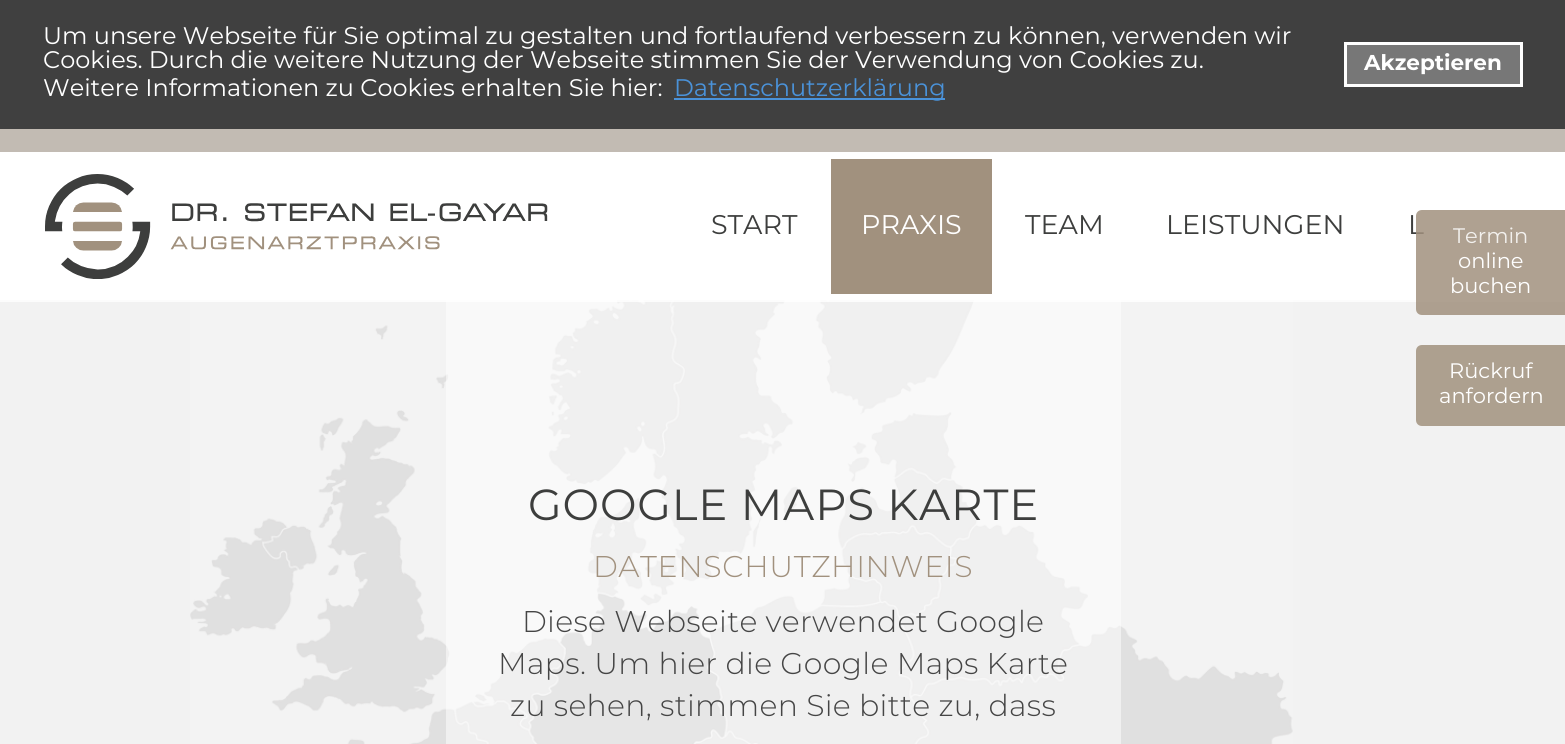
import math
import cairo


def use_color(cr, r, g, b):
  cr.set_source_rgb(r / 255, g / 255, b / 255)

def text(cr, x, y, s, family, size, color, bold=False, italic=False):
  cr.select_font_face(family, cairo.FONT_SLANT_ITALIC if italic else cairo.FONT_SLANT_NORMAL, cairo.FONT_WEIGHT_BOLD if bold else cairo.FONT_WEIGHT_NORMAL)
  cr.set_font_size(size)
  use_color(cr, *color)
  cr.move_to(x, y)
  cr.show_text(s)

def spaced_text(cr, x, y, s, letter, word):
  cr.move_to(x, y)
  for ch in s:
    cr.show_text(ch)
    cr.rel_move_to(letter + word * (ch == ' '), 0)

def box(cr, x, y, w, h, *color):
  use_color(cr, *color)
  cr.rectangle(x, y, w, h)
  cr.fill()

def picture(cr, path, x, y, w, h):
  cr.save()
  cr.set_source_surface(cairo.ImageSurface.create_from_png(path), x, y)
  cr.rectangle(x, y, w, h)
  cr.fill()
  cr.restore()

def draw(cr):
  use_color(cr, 255, 255, 255)
  cr.paint()
  box(cr, 0, 0, 1565, 129, 64, 64, 64)
  box(cr, 674, 98, 271, 2, 74, 146, 217)
  use_color(cr, 119, 119, 119)
  cr.rectangle(1345.5, 43.5, 176, 42)
  cr.fill_preserve()
  use_color(cr, 255, 255, 255)
  cr.set_line_width(3)
  cr.stroke()
  box(cr, 0, 300, 1565, 444, 242, 242, 242)
  picture(cr, "img_02.png", 190, 300, 1103, 444)
  cr.set_source_rgba(1, 1, 1, 0.5)
  cr.rectangle(446, 300, 675, 444)
  cr.fill()
  cr.set_source_rgba(1, 1, 1, 0.8)
  cr.rectangle(0, 300, 1565, 2)
  cr.fill()
  box(cr, 0, 129, 1565, 23, 194, 187, 179)
  picture(cr, "img_01.png", 45, 174, 503, 105)
  box(cr, 831, 159, 161, 135, 161, 145, 126)
  use_color(cr, 173, 160, 143)
  cr.new_path()
  cr.move_to(1422, 345)
  cr.line_to(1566, 345)
  cr.line_to(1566, 426)
  cr.line_to(1422, 426)
  cr.curve_to(1418.5, 426, 1416, 423.5, 1416, 420)
  cr.line_to(1416, 351)
  cr.curve_to(1416, 347.5, 1418.5, 345, 1422, 345)
  cr.close_path()
  cr.fill()
  text(cr, 43, 44, "Um unsere Webseite für Sie optimal zu gestalten und fortlaufend verbessern zu können, verwenden wir", "Montserrat", 24, (255, 255, 255))
  text(cr, 43, 68, "Cookies. Durch die weitere Nutzung der Webseite stimmen Sie der Verwendung von Cookies zu.", "Montserrat", 24, (255, 255, 255))
  text(cr, 43, 96, "Weitere Informationen zu Cookies erhalten Sie hier:", "Montserrat", 24, (255, 255, 255))
  text(cr, 674, 96, "Datenschutzerklärung", "Montserrat", 24, (74, 146, 217))
  text(cr, 1364, 70, "Akzeptieren", "Montserrat", 21.5, (255, 255, 255), bold=True)
  text(cr, 711, 234, "START", "Montserrat", 27, (61, 62, 61))
  text(cr, 861, 234, "PRAXIS", "Montserrat", 27, (255, 255, 255))
  text(cr, 1025, 234, "TEAM", "Montserrat", 27, (61, 62, 61))
  text(cr, 1166, 234, "LEISTUNGEN", "Montserrat", 27, (61, 62, 61))
  text(cr, 1408, 234, "L", "Montserrat", 27, (61, 62, 61))
  cr.set_source_rgba(0.631, 0.569, 0.494, 0.85)
  cr.new_path()
  cr.move_to(1422, 210)
  cr.line_to(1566, 210)
  cr.line_to(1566, 315)
  cr.line_to(1422, 315)
  cr.curve_to(1418.5, 315, 1416, 312.5, 1416, 309)
  cr.line_to(1416, 216)
  cr.curve_to(1416, 212.5, 1418.5, 210, 1422, 210)
  cr.close_path()
  cr.fill()
  text(cr, 1453, 243, "Termin", "Montserrat", 21, (243, 241, 238))
  text(cr, 1458, 268, "online", "Montserrat", 21, (255, 255, 255))
  text(cr, 1450, 293, "buchen", "Montserrat", 21, (255, 255, 255))
  text(cr, 1449, 378, "Rückruf", "Montserrat", 21, (255, 255, 255))
  text(cr, 1439, 403, "anfordern", "Montserrat", 21, (255, 255, 255))
  cr.set_font_size(43.5)
  use_color(cr, 61, 62, 61)
  spaced_text(cr, 528, 520, "GOOGLE MAPS KARTE", 0.9, 0)
  cr.select_font_face("Montserrat Light")
  cr.set_font_size(30)
  use_color(cr, 161, 145, 126)
  spaced_text(cr, 593, 577, "DATENSCHUTZHINWEIS", 0.6, 0)
  use_color(cr, 69, 69, 69)
  spaced_text(cr, 522, 632, "Diese Webseite verwendet Google", 0.3, 0)
  spaced_text(cr, 498, 674, "Maps. Um hier die Google Maps Karte", 0.3, 0)
  spaced_text(cr, 510, 716, "zu sehen, stimmen Sie bitte zu, dass", 0.3, 0)


surface = cairo.ImageSurface(cairo.FORMAT_RGB24, 1565, 744)
cr = cairo.Context(surface)
options = cairo.FontOptions()
options.set_hint_metrics(cairo.HINT_METRICS_OFF)
options.set_hint_style(cairo.HINT_STYLE_NONE)
cr.set_font_options(options)
cr.set_miter_limit(4)
draw(cr)
surface.write_to_png("out.png")
